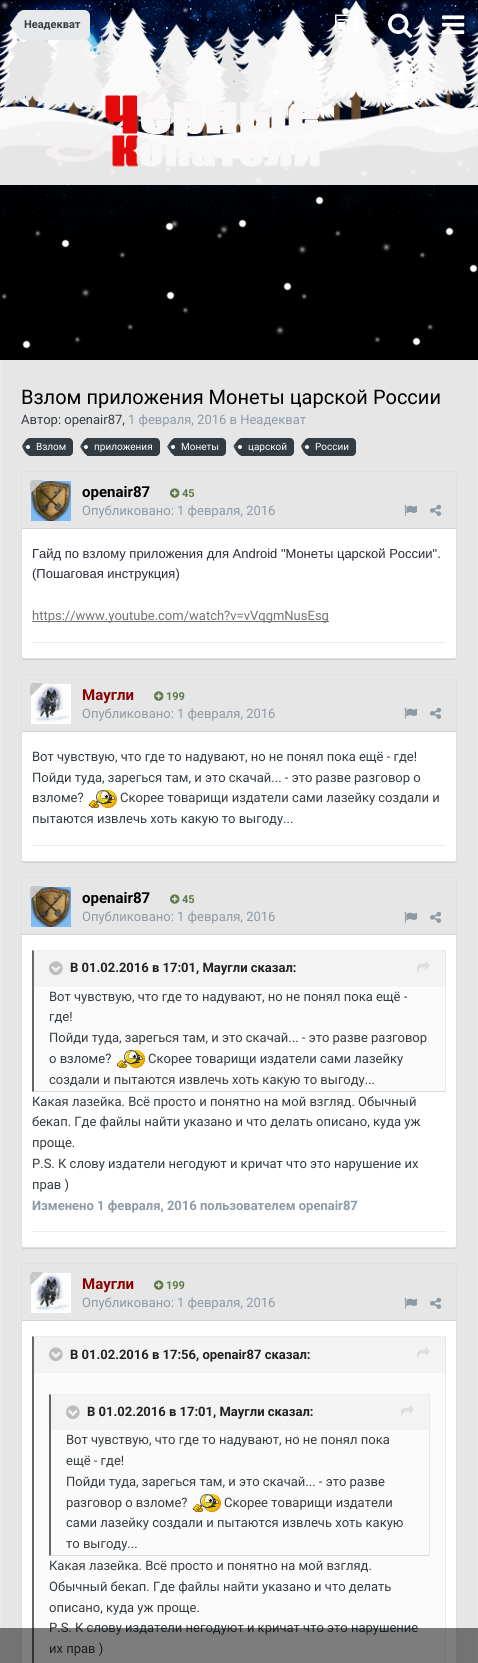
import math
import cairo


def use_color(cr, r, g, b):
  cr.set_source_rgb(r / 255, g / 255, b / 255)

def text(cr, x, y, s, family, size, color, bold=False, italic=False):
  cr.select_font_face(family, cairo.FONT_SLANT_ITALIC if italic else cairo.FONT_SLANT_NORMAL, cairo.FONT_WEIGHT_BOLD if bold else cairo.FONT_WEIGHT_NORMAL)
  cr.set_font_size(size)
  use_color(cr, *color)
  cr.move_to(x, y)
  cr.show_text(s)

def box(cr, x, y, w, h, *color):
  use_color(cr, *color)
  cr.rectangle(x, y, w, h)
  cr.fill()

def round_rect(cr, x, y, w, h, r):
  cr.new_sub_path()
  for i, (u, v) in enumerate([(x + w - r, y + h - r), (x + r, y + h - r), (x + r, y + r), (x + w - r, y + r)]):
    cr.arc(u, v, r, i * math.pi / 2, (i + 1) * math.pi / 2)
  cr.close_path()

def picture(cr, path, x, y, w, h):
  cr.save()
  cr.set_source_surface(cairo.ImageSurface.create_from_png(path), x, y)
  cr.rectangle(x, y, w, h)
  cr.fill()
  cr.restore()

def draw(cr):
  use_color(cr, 230, 230, 230)
  cr.paint()
  box(cr, 0, 0, 478, 360, 0, 0, 0)
  picture(cr, "img_01.png", 0, 0, 478, 349)
  picture(cr, "img_02.png", 46, 73, 274, 94)
  use_color(cr, 232, 233, 235)
  cr.new_path()
  cr.move_to(24, 10)
  cr.line_to(84, 10)
  cr.curve_to(87.5, 10, 90, 12.5, 90, 16)
  cr.line_to(90, 34)
  cr.curve_to(90, 37.5, 87.5, 40, 84, 40)
  cr.line_to(24, 40)
  cr.close_path()
  cr.fill()
  cr.new_path()
  cr.move_to(24, 25)
  cr.line_to(24, 40)
  cr.curve_to(22, 40, 19.5, 38.5, 17, 35.5)
  cr.line_to(10, 25)
  cr.close_path()
  cr.move_to(24, 25)
  cr.line_to(10, 25)
  cr.curve_to(10, 24, 18.5, 12.5, 19, 12)
  cr.curve_to(20.5, 11, 22, 10, 24, 10)
  cr.close_path()
  cr.fill()
  picture(cr, "img_03.png", 335, 14, 24, 19)
  picture(cr, "img_04.png", 388, 13, 25, 25)
  picture(cr, "img_05.png", 442, 15, 23, 19)
  box(cr, 477, 360, 1, 1303, 235, 235, 235)
  box(cr, 0, 360, 1, 1303, 235, 235, 235)
  use_color(cr, 53, 60, 65)
  cr.new_path()
  cr.move_to(29, 438)
  cr.line_to(69, 438)
  cr.curve_to(71, 438, 73, 440, 73, 442)
  cr.line_to(73, 452)
  cr.curve_to(73, 454, 71, 456, 69, 456)
  cr.line_to(29, 456)
  cr.close_path()
  cr.fill()
  cr.new_path()
  cr.move_to(30, 455.5)
  cr.curve_to(26, 455.5, 23.5, 449.5, 22, 446.5)
  cr.line_to(30, 446.5)
  cr.close_path()
  cr.fill()
  cr.new_path()
  cr.move_to(30, 438)
  cr.line_to(30, 446.5)
  cr.line_to(22, 446.5)
  cr.line_to(22, 446)
  cr.curve_to(24, 443, 26, 438, 30, 438)
  cr.close_path()
  cr.fill()
  use_color(cr, 255, 255, 255)
  cr.arc(28, 447, 2, 0, 2 * math.pi)
  cr.fill()
  use_color(cr, 53, 60, 65)
  cr.new_path()
  cr.move_to(87, 438)
  cr.line_to(156, 438)
  cr.curve_to(158, 438, 160, 440, 160, 442)
  cr.line_to(160, 452)
  cr.curve_to(160, 454, 158, 456, 156, 456)
  cr.line_to(87, 456)
  cr.close_path()
  cr.fill()
  cr.new_path()
  cr.move_to(88.5, 455.5)
  cr.curve_to(84.5, 455.5, 82, 449, 80, 446.5)
  cr.line_to(88.5, 446.5)
  cr.line_to(88, 447)
  cr.line_to(88.5, 447)
  cr.close_path()
  cr.fill()
  cr.new_path()
  cr.move_to(83.5, 441)
  cr.curve_to(85, 439.5, 86, 438, 88.5, 438)
  cr.line_to(88.5, 446)
  cr.line_to(88, 446)
  cr.line_to(88.5, 446.5)
  cr.line_to(80, 446.5)
  cr.close_path()
  cr.fill()
  use_color(cr, 255, 255, 255)
  cr.arc(86, 447, 2, 0, 2 * math.pi)
  cr.fill()
  use_color(cr, 53, 60, 65)
  cr.new_path()
  cr.move_to(174, 438)
  cr.line_to(222, 438)
  cr.curve_to(224, 438, 226, 440, 226, 442)
  cr.line_to(226, 452)
  cr.curve_to(226, 454, 224, 456, 222, 456)
  cr.line_to(174, 456)
  cr.close_path()
  cr.fill()
  cr.new_path()
  cr.move_to(175.5, 455.5)
  cr.curve_to(171.5, 455.5, 169, 449, 167, 446.5)
  cr.line_to(175.5, 446.5)
  cr.line_to(175, 447)
  cr.line_to(175.5, 447)
  cr.close_path()
  cr.fill()
  cr.new_path()
  cr.move_to(170, 442)
  cr.curve_to(171.5, 440, 173, 438, 175.5, 438)
  cr.line_to(175.5, 446)
  cr.line_to(175, 446)
  cr.line_to(175.5, 446.5)
  cr.line_to(167, 446.5)
  cr.close_path()
  cr.fill()
  use_color(cr, 255, 255, 255)
  cr.arc(173, 447, 2, 0, 2 * math.pi)
  cr.fill()
  use_color(cr, 53, 60, 65)
  cr.new_path()
  cr.move_to(241, 438)
  cr.line_to(290, 438)
  cr.curve_to(292, 438, 294, 440, 294, 442)
  cr.line_to(294, 452)
  cr.curve_to(294, 454, 292, 456, 290, 456)
  cr.line_to(241, 456)
  cr.close_path()
  cr.fill()
  cr.set_fill_rule(cairo.FILL_RULE_EVEN_ODD)
  cr.new_path()
  cr.move_to(236, 451)
  cr.line_to(233.5, 446.5)
  cr.line_to(241.5, 446.5)
  cr.line_to(241.5, 455.5)
  cr.curve_to(239, 455.5, 237.5, 453, 236, 451)
  cr.close_path()
  cr.move_to(241.5, 446.5)
  cr.line_to(241.5, 446.5)
  cr.close_path()
  cr.fill()
  cr.new_path()
  cr.move_to(236, 442.5)
  cr.curve_to(237.5, 440.5, 239, 438, 241.5, 438)
  cr.line_to(241.5, 446.5)
  cr.line_to(233.5, 446.5)
  cr.curve_to(233.5, 445.5, 235, 443.5, 236, 442.5)
  cr.close_path()
  cr.move_to(241.5, 446.5)
  cr.line_to(241.5, 446.5)
  cr.close_path()
  cr.fill()
  use_color(cr, 255, 255, 255)
  cr.arc(240, 447, 2, 0, 2 * math.pi)
  cr.fill()
  use_color(cr, 53, 60, 65)
  cr.new_path()
  cr.move_to(308, 438)
  cr.line_to(352, 438)
  cr.curve_to(354, 438, 356, 440, 356, 442)
  cr.line_to(356, 452)
  cr.curve_to(356, 454, 354, 456, 352, 456)
  cr.line_to(308, 456)
  cr.close_path()
  cr.fill()
  cr.set_fill_rule(cairo.FILL_RULE_WINDING)
  cr.new_path()
  cr.move_to(301, 446.5)
  cr.line_to(309, 446.5)
  cr.line_to(309, 455.5)
  cr.curve_to(305, 455.5, 302.5, 449.5, 301, 446.5)
  cr.close_path()
  cr.fill()
  cr.new_path()
  cr.move_to(309, 438)
  cr.line_to(309, 446.5)
  cr.line_to(301, 446.5)
  cr.curve_to(300.5, 445.5, 305, 440, 306, 439)
  cr.curve_to(307, 438.5, 308, 438, 309, 438)
  cr.close_path()
  cr.fill()
  use_color(cr, 255, 255, 255)
  cr.arc(307, 447, 2, 0, 2 * math.pi)
  cr.fill()
  use_color(cr, 207, 207, 207)
  cr.new_path()
  cr.move_to(21, 656)
  cr.line_to(21, 658)
  cr.line_to(23, 660)
  cr.line_to(454, 660)
  cr.curve_to(456, 660, 457, 658, 457, 656)
  cr.curve_to(457, 658, 456, 659, 454, 659)
  cr.line_to(24, 659)
  cr.curve_to(22, 659, 21, 658, 21, 656)
  cr.close_path()
  cr.fill()
  use_color(cr, 255, 255, 255)
  round_rect(cr, 21.5, 471.5, 435, 187, 2.5)
  cr.fill_preserve()
  use_color(cr, 224, 224, 224)
  cr.set_line_width(1)
  cr.stroke()
  box(cr, 22, 472, 434, 56, 230, 230, 230)
  box(cr, 22, 528, 434, 1, 213, 213, 213)
  picture(cr, "img_06.png", 31, 481, 40, 40)
  use_color(cr, 199, 199, 199)
  cr.new_path()
  cr.move_to(33, 480)
  cr.curve_to(32, 480, 31.5, 480.5, 31, 481)
  cr.line_to(37, 487)
  cr.line_to(43, 481)
  cr.curve_to(42.5, 480.5, 42, 480, 41, 480)
  cr.close_path()
  cr.fill()
  cr.new_path()
  cr.move_to(37, 487)
  cr.line_to(31, 493)
  cr.curve_to(29.5, 492, 29.5, 482.5, 31, 481)
  cr.close_path()
  cr.fill()
  picture(cr, "img_07.png", 170, 488, 10, 10)
  picture(cr, "img_08.png", 404, 504, 13, 12)
  picture(cr, "img_09.png", 430, 504, 12, 12)
  box(cr, 32, 621, 297, 1, 115, 115, 115)
  box(cr, 32, 642, 414, 1, 236, 236, 236)
  use_color(cr, 207, 207, 207)
  cr.new_path()
  cr.move_to(21, 859)
  cr.line_to(21, 861)
  cr.line_to(23, 863)
  cr.line_to(454, 863)
  cr.curve_to(456, 863, 457, 861, 457, 859)
  cr.curve_to(457, 861, 456, 862, 454, 862)
  cr.line_to(24, 862)
  cr.curve_to(22, 862, 21, 861, 21, 859)
  cr.close_path()
  cr.fill()
  use_color(cr, 255, 255, 255)
  round_rect(cr, 21.5, 674.5, 435, 187, 2.5)
  cr.fill_preserve()
  use_color(cr, 224, 224, 224)
  cr.stroke()
  box(cr, 22, 675, 434, 56, 230, 230, 230)
  box(cr, 22, 731, 434, 1, 213, 213, 213)
  picture(cr, "img_10.png", 31, 684, 40, 40)
  use_color(cr, 199, 199, 199)
  cr.new_path()
  cr.move_to(33, 683)
  cr.curve_to(32, 683, 31.5, 683.5, 31, 684)
  cr.line_to(37, 690)
  cr.line_to(43, 684)
  cr.curve_to(42.5, 683.5, 42, 683, 41, 683)
  cr.close_path()
  cr.fill()
  cr.new_path()
  cr.move_to(37, 690)
  cr.line_to(31, 696)
  cr.curve_to(29.5, 695, 29.5, 685.5, 31, 684)
  cr.close_path()
  cr.fill()
  picture(cr, "img_07.png", 154, 691, 10, 10)
  picture(cr, "img_08.png", 404, 707, 13, 12)
  picture(cr, "img_09.png", 430, 707, 12, 12)
  picture(cr, "img_11.png", 88, 790, 29, 18)
  box(cr, 32, 845, 414, 1, 236, 236, 236)
  use_color(cr, 207, 207, 207)
  cr.new_path()
  cr.move_to(21, 1245)
  cr.line_to(21, 1247)
  cr.line_to(23, 1249)
  cr.line_to(454, 1249)
  cr.curve_to(456, 1249, 457, 1247, 457, 1245)
  cr.curve_to(457, 1247, 456, 1248, 454, 1248)
  cr.line_to(24, 1248)
  cr.curve_to(22, 1248, 21, 1247, 21, 1245)
  cr.close_path()
  cr.fill()
  use_color(cr, 255, 255, 255)
  round_rect(cr, 21.5, 877.5, 435, 370, 2.5)
  cr.fill_preserve()
  use_color(cr, 224, 224, 224)
  cr.stroke()
  box(cr, 22, 878, 434, 56, 230, 230, 230)
  box(cr, 22, 934, 434, 1, 213, 213, 213)
  picture(cr, "img_06.png", 31, 887, 40, 40)
  use_color(cr, 199, 199, 199)
  cr.new_path()
  cr.move_to(33, 886)
  cr.curve_to(32, 886, 31.5, 886.5, 31, 887)
  cr.line_to(37, 893)
  cr.line_to(43, 887)
  cr.curve_to(42.5, 886.5, 42, 886, 41, 886)
  cr.close_path()
  cr.fill()
  cr.new_path()
  cr.move_to(37, 893)
  cr.line_to(31, 899)
  cr.curve_to(29.5, 898, 29.5, 888.5, 31, 887)
  cr.close_path()
  cr.fill()
  picture(cr, "img_07.png", 170, 894, 10, 10)
  picture(cr, "img_08.png", 404, 911, 13, 12)
  picture(cr, "img_09.png", 430, 911, 12, 12)
  box(cr, 34, 987, 411, 104, 251, 251, 251)
  use_color(cr, 237, 237, 237)
  cr.new_path()
  cr.move_to(32, 950)
  cr.line_to(446, 950)
  cr.line_to(445, 951)
  cr.line_to(34, 951)
  cr.close_path()
  cr.fill()
  box(cr, 445, 950, 1, 142, 232, 232, 232)
  use_color(cr, 219, 219, 219)
  cr.new_path()
  cr.move_to(446, 1092)
  cr.line_to(32, 1092)
  cr.line_to(34, 1091)
  cr.line_to(445, 1091)
  cr.close_path()
  cr.fill()
  use_color(cr, 102, 102, 102)
  cr.new_path()
  cr.move_to(32, 1092)
  cr.line_to(32, 950)
  cr.line_to(34, 951)
  cr.line_to(34, 1091)
  cr.close_path()
  cr.fill()
  box(cr, 34, 951, 411, 36, 243, 243, 243)
  picture(cr, "img_12.png", 49, 961, 14, 15)
  picture(cr, "img_13.png", 417, 961, 13, 12)
  picture(cr, "img_14.png", 116, 1050, 29, 18)
  box(cr, 32, 1231, 414, 1, 236, 236, 236)
  use_color(cr, 255, 255, 255)
  round_rect(cr, 21.5, 1263.5, 435, 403, 2.5)
  cr.fill_preserve()
  use_color(cr, 224, 224, 224)
  cr.stroke()
  box(cr, 22, 1264, 434, 56, 230, 230, 230)
  box(cr, 22, 1320, 434, 1, 213, 213, 213)
  picture(cr, "img_10.png", 31, 1273, 40, 40)
  use_color(cr, 199, 199, 199)
  cr.new_path()
  cr.move_to(33, 1272)
  cr.curve_to(32, 1272, 31.5, 1272.5, 31, 1273)
  cr.line_to(37, 1279)
  cr.line_to(43, 1273)
  cr.curve_to(42.5, 1272.5, 42, 1272, 41, 1272)
  cr.close_path()
  cr.fill()
  cr.new_path()
  cr.move_to(37, 1279)
  cr.line_to(31, 1285)
  cr.curve_to(29.5, 1284, 29.5, 1274.5, 31, 1273)
  cr.close_path()
  cr.fill()
  picture(cr, "img_07.png", 154, 1280, 10, 10)
  picture(cr, "img_08.png", 404, 1297, 13, 12)
  picture(cr, "img_09.png", 430, 1297, 12, 12)
  box(cr, 34, 1373, 411, 290, 251, 251, 251)
  use_color(cr, 237, 237, 237)
  cr.new_path()
  cr.move_to(32, 1336)
  cr.line_to(446, 1336)
  cr.line_to(445, 1337)
  cr.line_to(34, 1337)
  cr.close_path()
  cr.fill()
  box(cr, 445, 1336, 1, 327, 232, 232, 232)
  use_color(cr, 102, 102, 102)
  cr.new_path()
  cr.move_to(32, 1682)
  cr.line_to(32, 1336)
  cr.line_to(34, 1337)
  cr.line_to(34, 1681)
  cr.close_path()
  cr.fill()
  box(cr, 34, 1337, 411, 36, 243, 243, 243)
  picture(cr, "img_12.png", 49, 1347, 14, 15)
  picture(cr, "img_13.png", 417, 1347, 13, 12)
  use_color(cr, 237, 237, 237)
  cr.new_path()
  cr.move_to(49, 1394)
  cr.line_to(430, 1394)
  cr.line_to(429, 1395)
  cr.line_to(51, 1395)
  cr.close_path()
  cr.fill()
  box(cr, 429, 1394, 1, 162, 232, 232, 232)
  use_color(cr, 219, 219, 219)
  cr.new_path()
  cr.move_to(430, 1556)
  cr.line_to(49, 1556)
  cr.line_to(51, 1555)
  cr.line_to(429, 1555)
  cr.close_path()
  cr.fill()
  use_color(cr, 102, 102, 102)
  cr.new_path()
  cr.move_to(49, 1556)
  cr.line_to(49, 1394)
  cr.line_to(51, 1395)
  cr.line_to(51, 1555)
  cr.close_path()
  cr.fill()
  box(cr, 51, 1395, 378, 35, 243, 243, 243)
  picture(cr, "img_12.png", 66, 1405, 14, 15)
  picture(cr, "img_13.png", 401, 1405, 13, 12)
  picture(cr, "img_14.png", 192, 1494, 29, 18)
  text(cr, 24, 28, "Неадекват", "Roboto", 11, (53, 60, 65), bold=True)
  text(cr, 21, 404, "Взлом приложения Монеты царской России", "Roboto", 20, (0, 0, 0))
  text(cr, 21, 424, "Автор: openair87,", "Roboto", 13, (53, 60, 65))
  text(cr, 128, 424, "1 февраля, 2016 в Неадекват", "Roboto", 13, (141, 154, 166))
  text(cr, 36, 450, "Взлом", "Roboto", 10, (255, 255, 255))
  text(cr, 94, 450, "приложения", "Roboto", 10, (255, 255, 255))
  text(cr, 181, 450, "Монеты", "Roboto", 10, (255, 255, 255))
  text(cr, 248, 450, "царской", "Roboto", 10, (255, 255, 255))
  text(cr, 315, 450, "России", "Roboto", 10, (255, 255, 255))
  text(cr, 82, 497, "openair87", "Roboto", 15, (0, 0, 0), bold=True)
  text(cr, 182, 497, "45", "Roboto", 11, (95, 122, 71), bold=True)
  text(cr, 82, 515, "Опубликовано: 1 февраля, 2016", "Roboto", 13, (141, 154, 166))
  text(cr, 32, 558, "Гайд по взлому приложения для Android \"Монеты царской России\".", "Liberation Sans", 13, (39, 42, 52))
  text(cr, 32, 578, "(Пошаговая инструкция)", "Liberation Sans", 13, (39, 42, 52))
  text(cr, 32, 620, "https://www.youtube.com/watch?v=vVqgmNusEsg", "Roboto", 13, (115, 115, 115))
  text(cr, 82, 700, "Маугли", "Roboto", 15, (139, 0, 0), bold=True)
  text(cr, 166, 700, "199", "Roboto", 11, (95, 122, 71), bold=True)
  text(cr, 82, 718, "Опубликовано: 1 февраля, 2016", "Roboto", 13, (141, 154, 166))
  text(cr, 32, 761, "Вот чувствую, что где то надувают, но не понял пока ещё - где!", "Roboto", 13, (53, 60, 65))
  text(cr, 32, 782, "Пойди туда, зарегься там, и это скачай... - это разве разговор о", "Roboto", 13, (53, 60, 65))
  text(cr, 32, 802, "взломе?", "Roboto", 13, (53, 60, 65))
  text(cr, 120, 802, "Скорее товарищи издатели сами лазейку создали и", "Roboto", 13, (53, 60, 65))
  text(cr, 32, 823, "пытаются извлечь хоть какую то выгоду...", "Roboto", 13, (53, 60, 65))
  text(cr, 82, 903, "openair87", "Roboto", 15, (0, 0, 0), bold=True)
  text(cr, 182, 903, "45", "Roboto", 11, (95, 122, 71), bold=True)
  text(cr, 82, 921, "Опубликовано: 1 февраля, 2016", "Roboto", 13, (141, 154, 166))
  text(cr, 70, 972, "В 01.02.2016 в 17:01, Маугли сказал:", "Roboto", 13, (34, 34, 34), bold=True)
  text(cr, 49, 1001, "Вот чувствую, что где то надувают, но не понял пока ещё -", "Roboto", 13, (53, 60, 65))
  text(cr, 49, 1021, "где!", "Roboto", 13, (53, 60, 65))
  text(cr, 49, 1042, "Пойди туда, зарегься там, и это скачай... - это разве разговор", "Roboto", 13, (53, 60, 65))
  text(cr, 49, 1063, "о взломе?", "Roboto", 13, (53, 60, 65))
  text(cr, 148, 1063, "Скорее товарищи издатели сами лазейку", "Roboto", 13, (53, 60, 65))
  text(cr, 49, 1084, "создали и пытаются извлечь хоть какую то выгоду...", "Roboto", 13, (53, 60, 65))
  text(cr, 32, 1106, "Какая лазейка. Всё просто и понятно на мой взгляд. Обычный", "Roboto", 13, (53, 60, 65))
  text(cr, 32, 1126, "бекап. Где файлы найти указано и что делать описано, куда уж", "Roboto", 13, (53, 60, 65))
  text(cr, 32, 1147, "проще.", "Roboto", 13, (53, 60, 65))
  text(cr, 32, 1168, "P.S. К слову издатели негодуют и кричат что это нарушение их", "Roboto", 13, (53, 60, 65))
  text(cr, 32, 1189, "прав )", "Roboto", 13, (53, 60, 65))
  text(cr, 32, 1210, "Изменено 1 февраля, 2016 пользователем openair87", "Roboto", 13, (141, 154, 166), bold=True)
  text(cr, 82, 1289, "Маугли", "Roboto", 15, (139, 0, 0), bold=True)
  text(cr, 166, 1289, "199", "Roboto", 11, (95, 122, 71), bold=True)
  text(cr, 82, 1307, "Опубликовано: 1 февраля, 2016", "Roboto", 13, (141, 154, 166))
  text(cr, 70, 1359, "В 01.02.2016 в 17:56, openair87 сказал:", "Roboto", 13, (34, 34, 34), bold=True)
  text(cr, 87, 1416, "В 01.02.2016 в 17:01, Маугли сказал:", "Roboto", 13, (34, 34, 34), bold=True)
  text(cr, 66, 1444, "Вот чувствую, что где то надувают, но не понял пока", "Roboto", 13, (53, 60, 65))
  text(cr, 66, 1465, "ещё - где!", "Roboto", 13, (53, 60, 65))
  text(cr, 66, 1486, "Пойди туда, зарегься там, и это скачай... - это разве", "Roboto", 13, (53, 60, 65))
  text(cr, 66, 1507, "разговор о взломе?", "Roboto", 13, (53, 60, 65))
  text(cr, 224, 1507, "Скорее товарищи издатели", "Roboto", 13, (53, 60, 65))
  text(cr, 66, 1527, "сами лазейку создали и пытаются извлечь хоть какую", "Roboto", 13, (53, 60, 65))
  text(cr, 66, 1548, "то выгоду...", "Roboto", 13, (53, 60, 65))
  text(cr, 49, 1570, "Какая лазейка. Всё просто и понятно на мой взгляд.", "Roboto", 13, (53, 60, 65))
  text(cr, 49, 1591, "Обычный бекап. Где файлы найти указано и что делать", "Roboto", 13, (53, 60, 65))
  text(cr, 49, 1612, "описано, куда уж проще.", "Roboto", 13, (53, 60, 65))
  text(cr, 49, 1632, "P.S. К слову издатели негодуют и кричат что это нарушение", "Roboto", 13, (53, 60, 65))
  text(cr, 49, 1653, "их прав )", "Roboto", 13, (53, 60, 65))
  cr.set_source_rgba(0, 0, 0, 0.5)
  cr.rectangle(0, 1628, 478, 35)
  cr.fill()


surface = cairo.ImageSurface(cairo.FORMAT_RGB24, 478, 1663)
cr = cairo.Context(surface)
options = cairo.FontOptions()
options.set_hint_metrics(cairo.HINT_METRICS_OFF)
options.set_hint_style(cairo.HINT_STYLE_NONE)
cr.set_font_options(options)
cr.set_miter_limit(4)
draw(cr)
surface.write_to_png("out.png")
